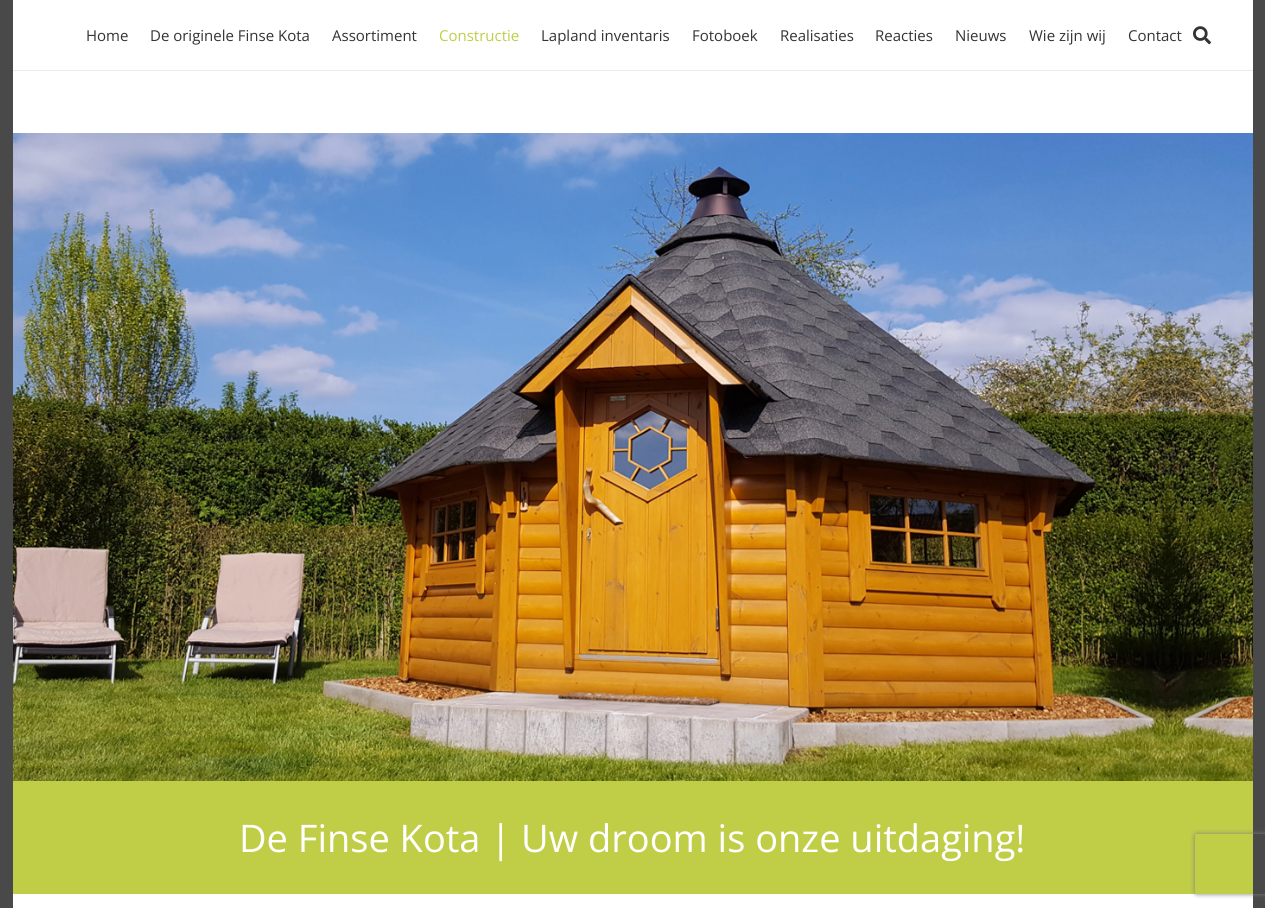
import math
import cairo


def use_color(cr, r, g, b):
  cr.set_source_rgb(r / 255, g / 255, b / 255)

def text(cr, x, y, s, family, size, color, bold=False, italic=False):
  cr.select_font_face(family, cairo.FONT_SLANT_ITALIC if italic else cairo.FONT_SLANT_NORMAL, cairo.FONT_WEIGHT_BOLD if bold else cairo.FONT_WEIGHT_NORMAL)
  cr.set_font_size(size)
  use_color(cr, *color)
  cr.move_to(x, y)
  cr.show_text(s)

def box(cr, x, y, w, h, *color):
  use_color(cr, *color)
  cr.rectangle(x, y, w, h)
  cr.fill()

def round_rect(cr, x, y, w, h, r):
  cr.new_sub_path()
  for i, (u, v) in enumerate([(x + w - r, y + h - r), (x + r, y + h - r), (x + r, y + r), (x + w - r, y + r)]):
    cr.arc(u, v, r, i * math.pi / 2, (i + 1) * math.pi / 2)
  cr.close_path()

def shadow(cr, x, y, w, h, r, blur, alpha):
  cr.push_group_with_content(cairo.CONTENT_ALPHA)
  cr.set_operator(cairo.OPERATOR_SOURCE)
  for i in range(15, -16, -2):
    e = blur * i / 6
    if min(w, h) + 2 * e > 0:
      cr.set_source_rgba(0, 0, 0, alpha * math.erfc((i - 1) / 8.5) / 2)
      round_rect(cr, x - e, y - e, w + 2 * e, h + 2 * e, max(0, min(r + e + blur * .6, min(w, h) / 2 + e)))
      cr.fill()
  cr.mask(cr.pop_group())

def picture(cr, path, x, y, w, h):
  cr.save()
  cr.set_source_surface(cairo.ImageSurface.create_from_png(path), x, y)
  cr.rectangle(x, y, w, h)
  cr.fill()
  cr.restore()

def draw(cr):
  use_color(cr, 74, 73, 73)
  cr.paint()
  box(cr, 13, 0, 1240, 908, 255, 255, 255)
  box(cr, 13, 70, 1240, 1, 235, 235, 235)
  picture(cr, "img_01.png", 1193, 26, 18, 19)
  picture(cr, "img_02.png", 13, 133, 1240, 648)
  box(cr, 13, 781, 1240, 113, 191, 205, 71)
  cr.save()
  cr.set_fill_rule(cairo.FILL_RULE_EVEN_ODD)
  cr.new_path()
  cr.move_to(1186, 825)
  cr.line_to(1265, 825)
  cr.line_to(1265, 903)
  cr.line_to(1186, 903)
  cr.close_path()
  cr.move_to(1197, 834)
  cr.line_to(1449, 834)
  cr.curve_to(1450, 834, 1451, 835, 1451, 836)
  cr.line_to(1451, 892)
  cr.curve_to(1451, 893, 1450, 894, 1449, 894)
  cr.line_to(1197, 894)
  cr.curve_to(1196, 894, 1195, 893, 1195, 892)
  cr.line_to(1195, 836)
  cr.curve_to(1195, 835, 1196, 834, 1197, 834)
  cr.close_path()
  cr.clip()
  use_color(cr, 128, 128, 128)
  shadow(cr, 1195, 834, 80, 60, 2, 2.5, 1)
  cr.restore()
  text(cr, 86, 41, "Home", "Open Sans", 15, (51, 51, 51))
  text(cr, 150, 41, "De originele Finse Kota", "Open Sans", 15, (51, 51, 51))
  text(cr, 332, 41, "Assortiment", "Open Sans", 15, (51, 51, 51))
  text(cr, 439, 41, "Constructie", "Open Sans", 15, (191, 205, 71))
  text(cr, 541, 41, "Lapland inventaris", "Open Sans", 15, (51, 51, 51))
  text(cr, 692, 41, "Fotoboek", "Open Sans", 15, (51, 51, 51))
  text(cr, 780, 41, "Realisaties", "Open Sans", 15, (51, 51, 51))
  text(cr, 875, 41, "Reacties", "Open Sans", 15, (51, 51, 51))
  text(cr, 955, 41, "Nieuws", "Open Sans", 15, (51, 51, 51))
  text(cr, 1029, 41, "Wie zijn wij", "Open Sans", 15, (51, 51, 51))
  text(cr, 1128, 41, "Contact", "Open Sans", 15, (51, 51, 51))
  text(cr, 239, 852, "De Finse Kota | Uw droom is onze uitdaging!", "Open Sans", 38, (255, 255, 255))


surface = cairo.ImageSurface(cairo.FORMAT_RGB24, 1265, 908)
cr = cairo.Context(surface)
options = cairo.FontOptions()
options.set_hint_metrics(cairo.HINT_METRICS_OFF)
options.set_hint_style(cairo.HINT_STYLE_NONE)
cr.set_font_options(options)
cr.set_miter_limit(4)
draw(cr)
surface.write_to_png("out.png")
